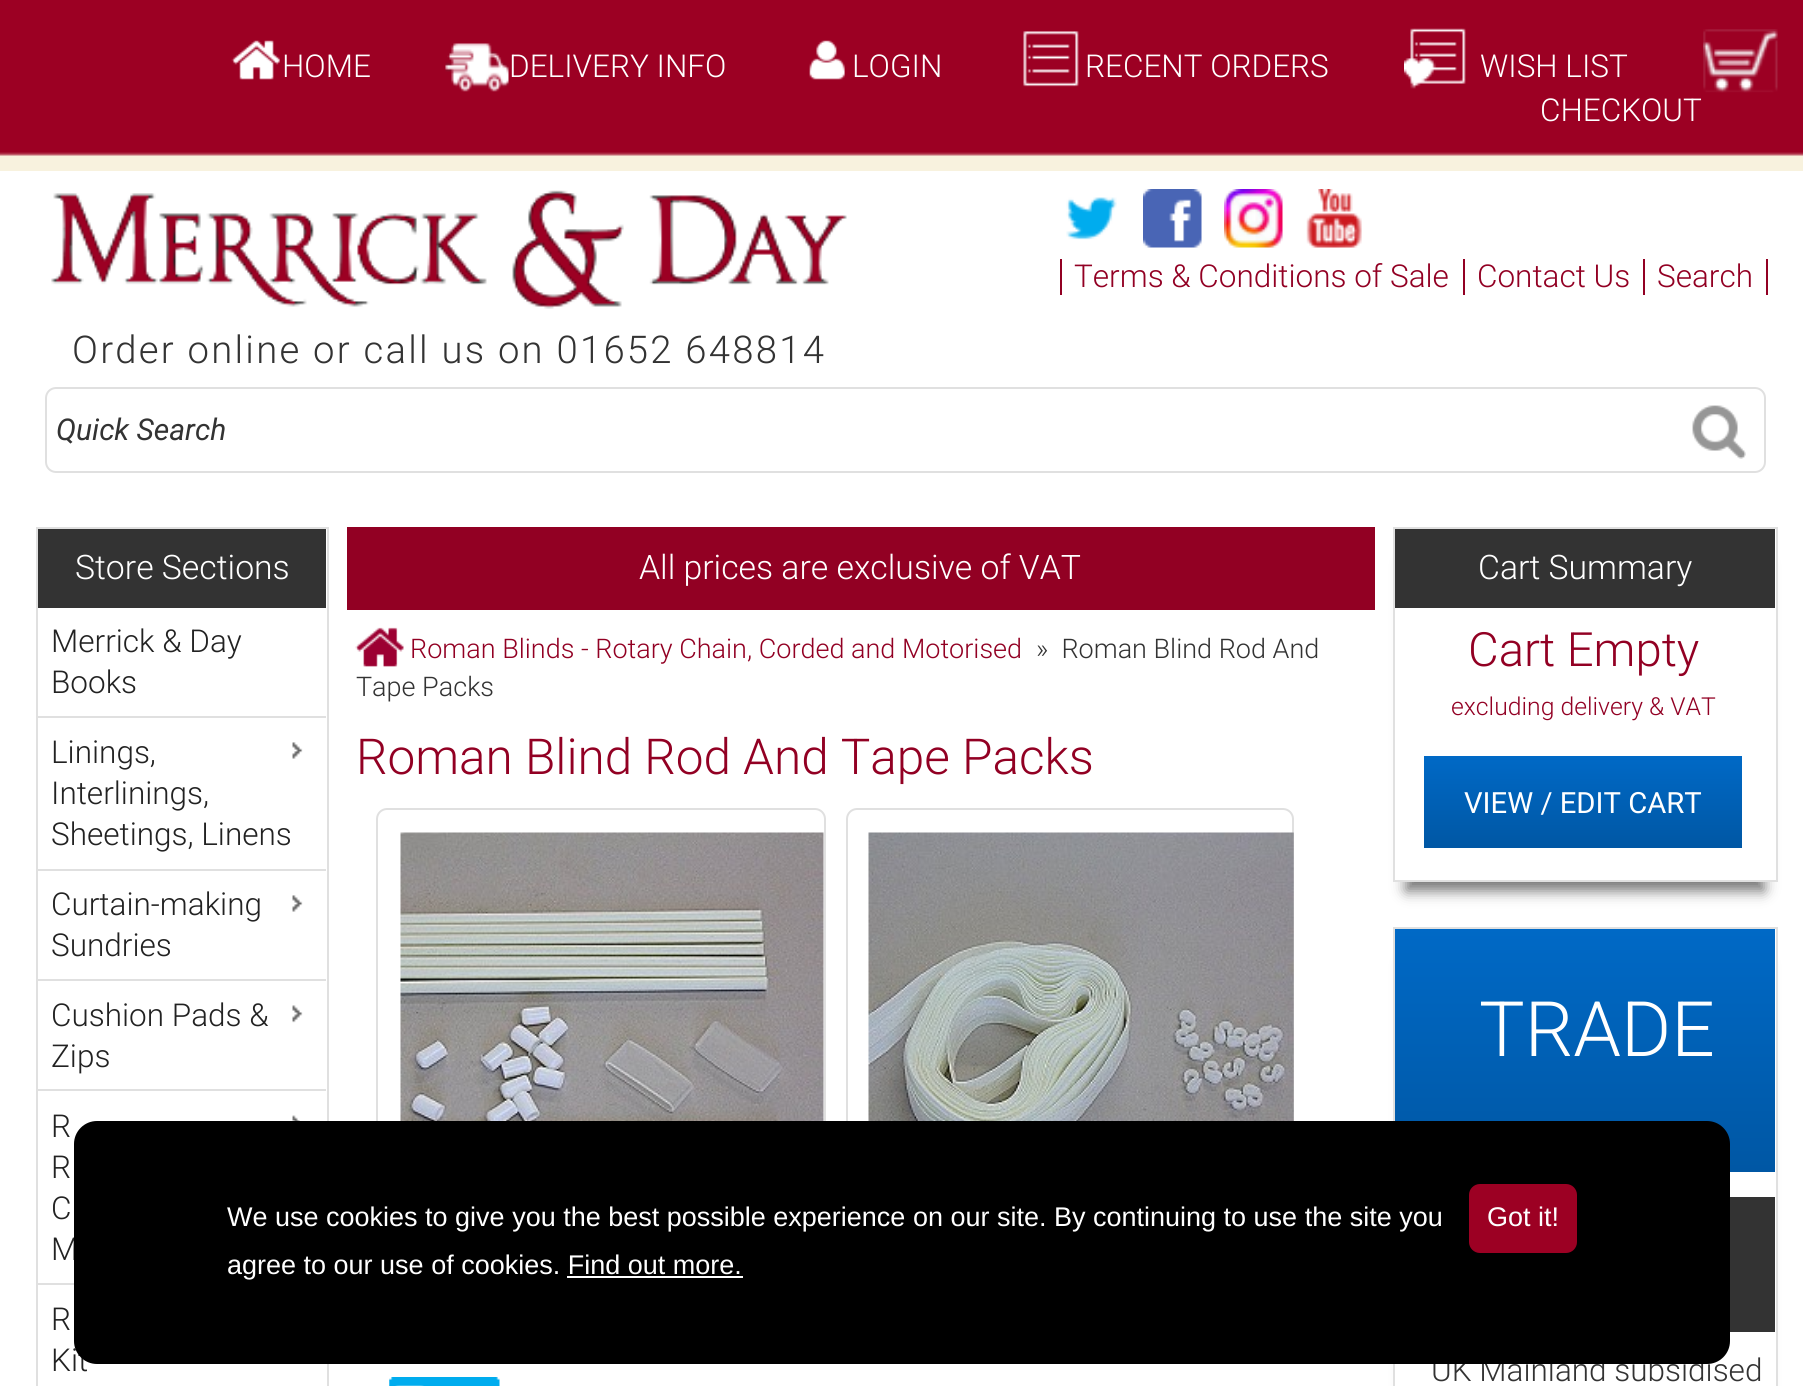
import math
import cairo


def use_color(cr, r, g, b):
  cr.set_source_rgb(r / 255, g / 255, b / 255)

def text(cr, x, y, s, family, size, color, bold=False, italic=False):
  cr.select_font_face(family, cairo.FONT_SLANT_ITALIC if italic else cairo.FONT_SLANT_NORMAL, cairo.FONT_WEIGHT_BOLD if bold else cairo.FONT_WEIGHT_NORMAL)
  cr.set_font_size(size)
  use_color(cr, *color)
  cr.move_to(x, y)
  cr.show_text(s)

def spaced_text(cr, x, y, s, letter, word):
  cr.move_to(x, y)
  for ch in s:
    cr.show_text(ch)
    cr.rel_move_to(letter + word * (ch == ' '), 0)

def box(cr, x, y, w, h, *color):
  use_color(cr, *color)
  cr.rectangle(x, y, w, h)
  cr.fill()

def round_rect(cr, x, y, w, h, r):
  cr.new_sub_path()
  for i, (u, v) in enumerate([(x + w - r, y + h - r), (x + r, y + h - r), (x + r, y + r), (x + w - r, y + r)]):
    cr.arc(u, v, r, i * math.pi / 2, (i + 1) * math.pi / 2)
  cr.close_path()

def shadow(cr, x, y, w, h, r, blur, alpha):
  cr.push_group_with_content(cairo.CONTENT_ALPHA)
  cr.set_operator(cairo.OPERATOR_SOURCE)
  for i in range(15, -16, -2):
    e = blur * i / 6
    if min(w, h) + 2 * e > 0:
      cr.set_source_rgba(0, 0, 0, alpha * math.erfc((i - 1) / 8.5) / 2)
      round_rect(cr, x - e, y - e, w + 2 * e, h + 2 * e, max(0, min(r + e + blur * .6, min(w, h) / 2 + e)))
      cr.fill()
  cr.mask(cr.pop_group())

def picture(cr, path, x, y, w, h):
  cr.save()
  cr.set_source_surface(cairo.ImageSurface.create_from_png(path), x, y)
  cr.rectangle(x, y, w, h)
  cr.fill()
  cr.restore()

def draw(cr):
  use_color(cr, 255, 255, 255)
  cr.paint()
  picture(cr, "img_01.png", 0, 0, 1803, 171)
  picture(cr, "img_02.png", 231, 40, 49, 40)
  picture(cr, "img_03.png", 445, 43, 64, 49)
  picture(cr, "img_04.png", 809, 40, 36, 40)
  picture(cr, "img_05.png", 1023, 31, 56, 56)
  picture(cr, "img_06.png", 1404, 28, 62, 61)
  picture(cr, "img_07.png", 1703, 29, 75, 64)
  picture(cr, "img_08.png", 1066, 197, 51, 43)
  picture(cr, "img_09.png", 1143, 189, 59, 59)
  picture(cr, "img_10.png", 1224, 189, 59, 59)
  picture(cr, "img_11.png", 1306, 189, 56, 59)
  box(cr, 1766, 259, 2, 36, 146, 0, 35)
  box(cr, 1060, 259, 2, 36, 146, 0, 35)
  box(cr, 1463, 259, 2, 36, 146, 0, 35)
  box(cr, 1643, 259, 2, 36, 146, 0, 35)
  picture(cr, "img_12.png", 51, 190, 796, 119)
  round_rect(cr, 46, 388, 1719, 84, 10)
  use_color(cr, 224, 224, 224)
  cr.stroke()
  picture(cr, "img_13.png", 1692, 405, 54, 54)
  cr.rectangle(37, 528, 291, 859)
  cr.stroke()
  box(cr, 38, 529, 288, 79, 51, 51, 51)
  box(cr, 38, 716, 288, 2, 224, 224, 224)
  box(cr, 38, 869, 288, 2, 224, 224, 224)
  picture(cr, "img_14.png", 292, 742, 11, 17)
  box(cr, 38, 979, 288, 2, 224, 224, 224)
  picture(cr, "img_14.png", 292, 895, 11, 17)
  box(cr, 38, 1089, 288, 2, 224, 224, 224)
  picture(cr, "img_15.png", 292, 1005, 11, 18)
  box(cr, 38, 1283, 36, 2, 224, 224, 224)
  picture(cr, "img_16.png", 292, 1115, 8, 6)
  box(cr, 347, 527, 1028, 83, 146, 0, 35)
  picture(cr, "img_17.png", 355, 627, 49, 40)
  round_rect(cr, 377, 809, 448, 527, 10)
  use_color(cr, 224, 224, 224)
  cr.stroke()
  picture(cr, "img_18.png", 400, 832, 424, 289)
  round_rect(cr, 847, 809, 446, 527, 10)
  cr.stroke()
  picture(cr, "img_19.png", 868, 832, 426, 289)
  picture(cr, "img_20.png", 389, 1377, 111, 9)
  use_color(cr, 119, 119, 119)
  shadow(cr, 1406, 563, 358, 328, 0, 7, 1)
  box(cr, 1395, 548, 381, 332, 255, 255, 255)
  cr.rectangle(1394, 528, 383, 353)
  use_color(cr, 224, 224, 224)
  cr.stroke()
  box(cr, 1395, 529, 380, 79, 51, 51, 51)
  gradient = cairo.LinearGradient(1583, 756, 1583, 848)
  gradient.add_color_stop_rgba(0, 0, 0.412, 0.776, 1)
  gradient.add_color_stop_rgba(1, 0, 0.341, 0.643, 1)
  cr.set_source(gradient)
  cr.rectangle(1424, 756, 318, 92)
  cr.fill()
  use_color(cr, 119, 119, 119)
  shadow(cr, 1406, 963, 358, 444, 0, 7, 1)
  box(cr, 1395, 948, 381, 438, 255, 255, 255)
  cr.rectangle(1394, 928, 383, 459)
  use_color(cr, 224, 224, 224)
  cr.stroke()
  gradient = cairo.LinearGradient(1585, 929, 1585, 1172)
  gradient.add_color_stop_rgba(0, 0, 0.412, 0.776, 1)
  gradient.add_color_stop_rgba(1, 0, 0.341, 0.643, 1)
  cr.set_source(gradient)
  cr.rectangle(1395, 929, 380, 243)
  cr.fill()
  box(cr, 1730, 1197, 45, 135, 51, 51, 51)
  text(cr, 282, 77, "HOME", "Roboto Light", 31.5, (255, 255, 255))
  text(cr, 509, 77, "DELIVERY INFO", "Roboto Light", 31.5, (255, 255, 255))
  text(cr, 852, 77, "LOGIN", "Roboto Light", 31.5, (255, 255, 255))
  text(cr, 1085, 77, "RECENT ORDERS", "Roboto Light", 31.5, (255, 255, 255))
  text(cr, 1480, 77, "WISH LIST", "Roboto Light", 31.5, (255, 255, 255))
  text(cr, 1540, 121, "CHECKOUT", "Roboto Light", 31.5, (255, 255, 255))
  text(cr, 1074, 287, "Terms & Conditions of Sale", "Roboto Light", 31.5, (146, 0, 35))
  text(cr, 1477, 287, "Contact Us", "Roboto Light", 31.5, (146, 0, 35))
  text(cr, 1657, 287, "Search", "Roboto Light", 31.5, (146, 0, 35))
  cr.set_font_size(38.25)
  use_color(cr, 51, 51, 51)
  spaced_text(cr, 72, 363, "Order online or call us on 01652 648814", 2.25, 0)
  text(cr, 56, 440, "Quick Search", "Roboto", 30, (51, 51, 51), italic=True)
  text(cr, 75, 579, "Store Sections", "Roboto Light", 33.75, (255, 255, 255))
  text(cr, 51, 652, "Merrick & Day", "Roboto Light", 31.5, (34, 34, 34))
  text(cr, 51, 693, "Books", "Roboto Light", 31.5, (34, 34, 34))
  text(cr, 51, 763, "Linings,", "Roboto Light", 31.5, (34, 34, 34))
  text(cr, 51, 804, "Interlinings,", "Roboto Light", 31.5, (34, 34, 34))
  text(cr, 51, 845, "Sheetings, Linens", "Roboto Light", 31.5, (34, 34, 34))
  text(cr, 51, 915, "Curtain-making", "Roboto Light", 31.5, (34, 34, 34))
  text(cr, 51, 956, "Sundries", "Roboto Light", 31.5, (34, 34, 34))
  text(cr, 51, 1026, "Cushion Pads &", "Roboto Light", 31.5, (34, 34, 34))
  text(cr, 51, 1067, "Zips", "Roboto Light", 31.5, (34, 34, 34))
  text(cr, 51, 1137, "R", "Roboto Light", 31.5, (34, 34, 34))
  text(cr, 51, 1178, "R", "Roboto Light", 31.5, (34, 34, 34))
  text(cr, 51, 1219, "C", "Roboto Light", 31.5, (34, 34, 34))
  text(cr, 51, 1260, "M", "Roboto Light", 31.5, (34, 34, 34))
  text(cr, 51, 1330, "R", "Roboto Light", 31.5, (34, 34, 34))
  text(cr, 51, 1371, "Kit", "Roboto Light", 31.5, (34, 34, 34))
  text(cr, 639, 579, "All prices are exclusive of VAT", "Roboto Light", 33.75, (255, 255, 255))
  text(cr, 410, 658, "Roman Blinds - Rotary Chain, Corded and Motorised", "Roboto Light", 27, (146, 0, 35))
  text(cr, 1036, 658, "»  Roman Blind Rod And", "Roboto Light", 27, (51, 51, 51))
  text(cr, 356, 696, "Tape Packs", "Roboto Light", 27, (51, 51, 51))
  text(cr, 356, 774, "Roman Blind Rod And Tape Packs", "Roboto Light", 49.5, (146, 0, 35))
  text(cr, 1478, 579, "Cart Summary", "Roboto Light", 33.75, (255, 255, 255))
  text(cr, 1468, 666, "Cart Empty", "Roboto Light", 47.25, (146, 0, 35))
  text(cr, 1451, 715, "excluding delivery & VAT", "Roboto Light", 24.75, (146, 0, 35))
  text(cr, 1464, 813, "VIEW / EDIT CART", "Roboto", 29.25, (255, 255, 255))
  text(cr, 1479, 1056, "TRADE", "Roboto Light", 76.5, (255, 255, 255))
  text(cr, 1431, 1381, "UK Mainland subsidised", "Roboto Light", 31.5, (51, 51, 51))
  use_color(cr, 0, 0, 0)
  round_rect(cr, 74, 1121, 1656, 243, 23)
  cr.fill()
  text(cr, 227, 1226, "We use cookies to give you the best possible experience on our site. By continuing to use the site you", "Liberation Sans", 27, (255, 255, 255))
  text(cr, 227, 1274, "agree to our use of cookies. Find out more.", "Liberation Sans", 27, (255, 255, 255))
  box(cr, 567, 1276, 176, 2, 255, 255, 255)
  use_color(cr, 156, 0, 35)
  round_rect(cr, 1469, 1184, 108, 69, 11)
  cr.fill()
  text(cr, 1487, 1226, "Got it!", "Liberation Sans", 27, (255, 255, 255))


surface = cairo.ImageSurface(cairo.FORMAT_RGB24, 1803, 1386)
cr = cairo.Context(surface)
options = cairo.FontOptions()
options.set_hint_metrics(cairo.HINT_METRICS_OFF)
options.set_hint_style(cairo.HINT_STYLE_NONE)
cr.set_font_options(options)
cr.set_miter_limit(4)
draw(cr)
surface.write_to_png("out.png")
